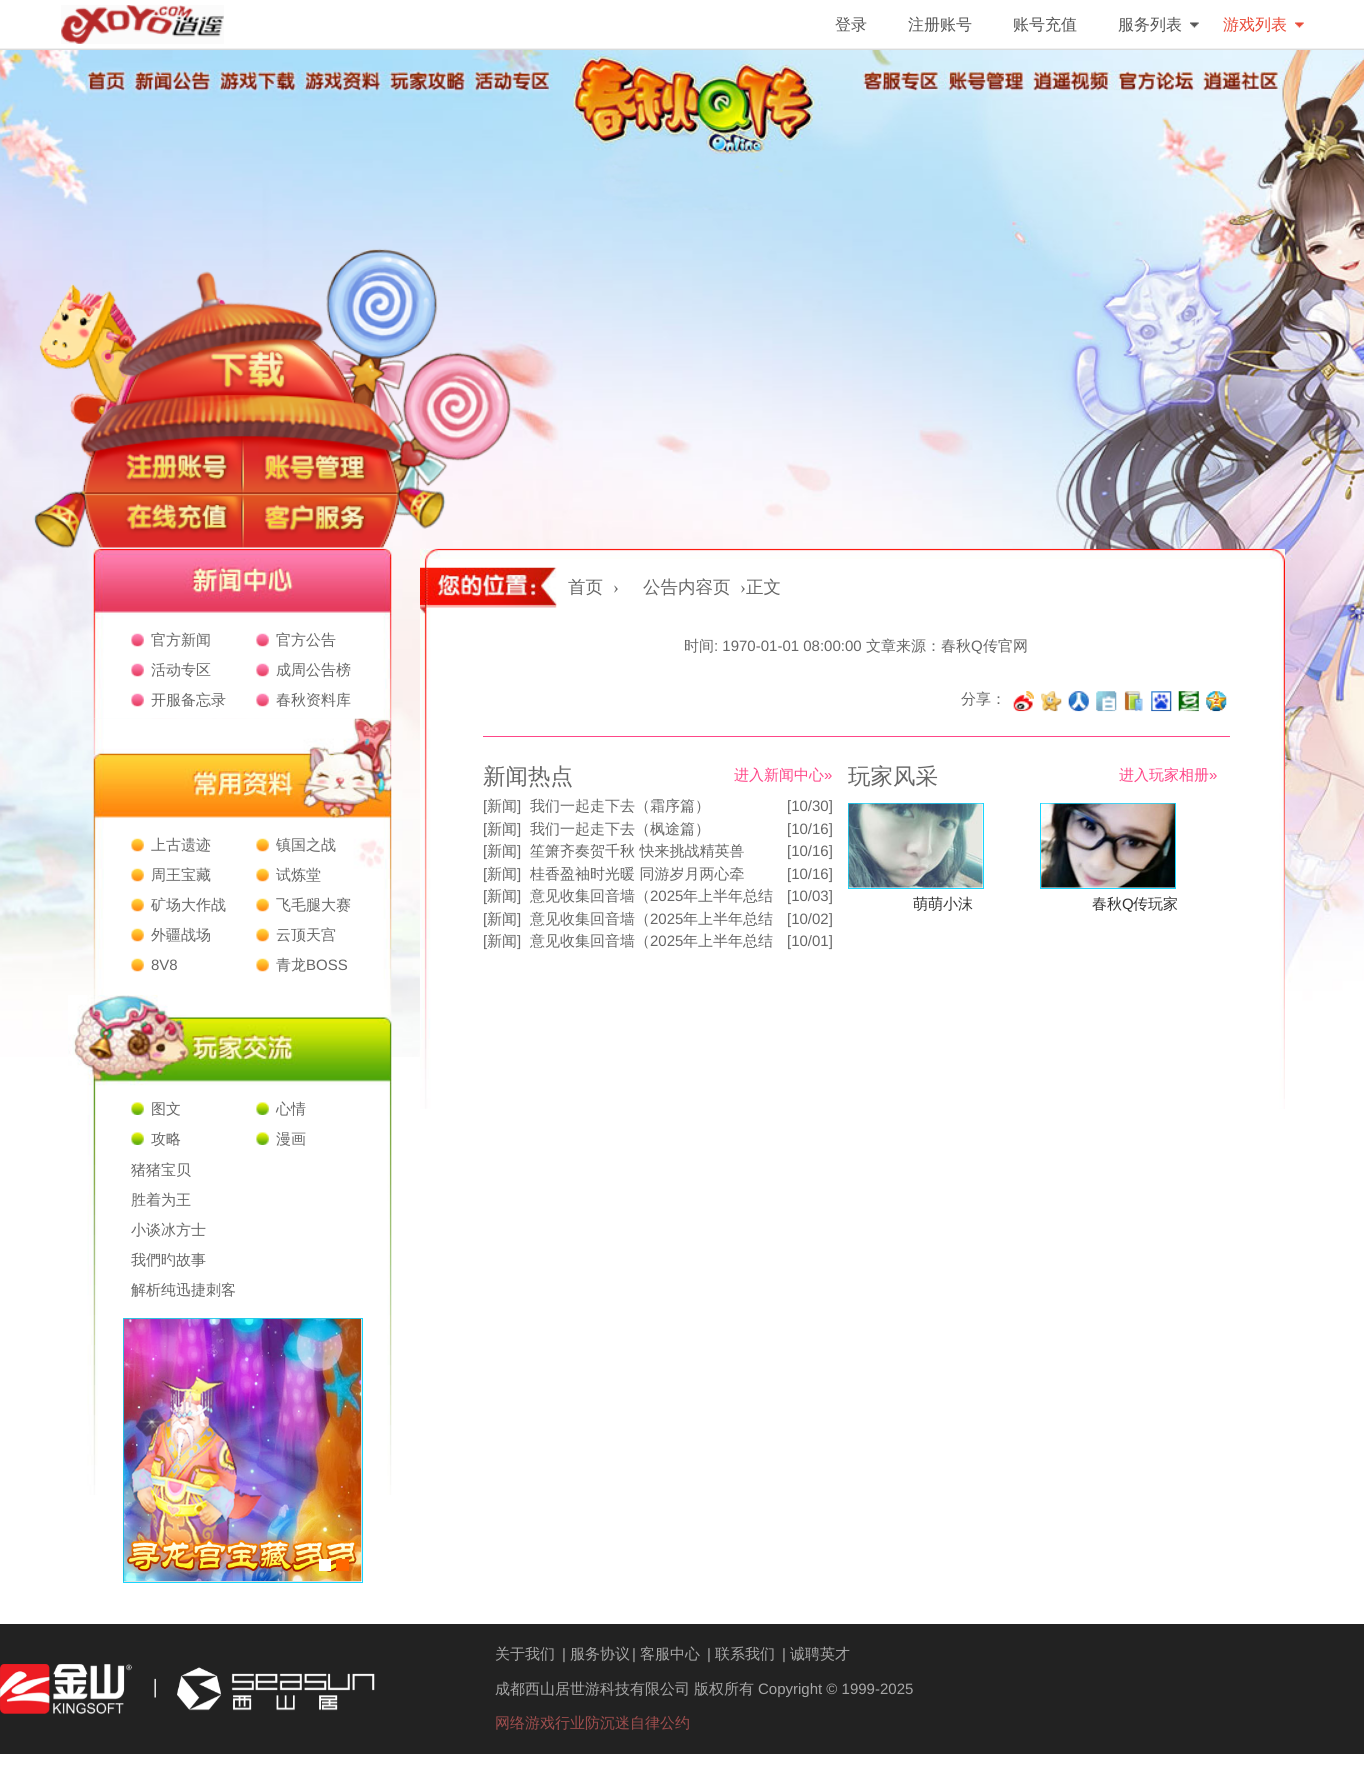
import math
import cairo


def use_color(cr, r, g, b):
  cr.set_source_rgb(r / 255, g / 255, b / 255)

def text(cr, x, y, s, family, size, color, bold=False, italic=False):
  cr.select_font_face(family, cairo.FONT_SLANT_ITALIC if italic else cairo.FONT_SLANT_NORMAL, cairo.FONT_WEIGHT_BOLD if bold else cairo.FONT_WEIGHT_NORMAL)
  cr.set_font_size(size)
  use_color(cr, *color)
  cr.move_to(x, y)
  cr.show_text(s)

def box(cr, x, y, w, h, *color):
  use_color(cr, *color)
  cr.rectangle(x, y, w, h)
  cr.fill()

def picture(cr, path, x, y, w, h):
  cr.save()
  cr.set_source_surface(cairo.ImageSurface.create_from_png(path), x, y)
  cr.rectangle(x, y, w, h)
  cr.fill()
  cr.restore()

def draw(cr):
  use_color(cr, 255, 255, 255)
  cr.paint()
  picture(cr, "img_01.png", 0, 50, 1364, 1007)
  picture(cr, "img_02.png", 0, 48, 1364, 2)
  picture(cr, "img_03.png", 61, 5, 163, 39)
  picture(cr, "img_04.png", 1190, 22, 9, 6)
  picture(cr, "img_05.png", 1295, 22, 9, 6)
  picture(cr, "img_06.png", 33, 248, 479, 300)
  picture(cr, "img_07.png", 93, 548, 299, 171)
  picture(cr, "img_08.png", 131, 633, 13, 14)
  picture(cr, "img_09.png", 256, 633, 13, 14)
  picture(cr, "img_08.png", 131, 663, 13, 14)
  picture(cr, "img_09.png", 256, 663, 13, 14)
  picture(cr, "img_08.png", 131, 693, 13, 14)
  picture(cr, "img_09.png", 256, 693, 13, 14)
  picture(cr, "img_10.png", 93, 718, 299, 277)
  picture(cr, "img_11.png", 131, 838, 13, 14)
  picture(cr, "img_12.png", 256, 838, 13, 14)
  picture(cr, "img_11.png", 131, 868, 13, 14)
  picture(cr, "img_12.png", 256, 868, 13, 14)
  picture(cr, "img_11.png", 131, 898, 13, 14)
  picture(cr, "img_12.png", 256, 898, 13, 14)
  picture(cr, "img_11.png", 131, 928, 13, 14)
  picture(cr, "img_12.png", 256, 928, 13, 14)
  picture(cr, "img_11.png", 131, 958, 13, 14)
  picture(cr, "img_12.png", 256, 958, 13, 14)
  picture(cr, "img_13.png", 68, 995, 324, 500)
  picture(cr, "img_14.png", 131, 1102, 13, 13)
  picture(cr, "img_15.png", 256, 1102, 13, 13)
  picture(cr, "img_14.png", 131, 1132, 13, 13)
  picture(cr, "img_15.png", 256, 1132, 13, 13)
  cr.rectangle(123.5, 1318.5, 239, 264)
  use_color(cr, 22, 214, 255)
  cr.set_line_width(1)
  cr.stroke()
  picture(cr, "img_16.png", 123, 1318, 239, 264)
  picture(cr, "img_17.png", 123, 1318, 239, 264)
  picture(cr, "img_18.png", 123, 1318, 239, 264)
  box(cr, 319, 1559, 12, 12, 255, 255, 255)
  box(cr, 336, 1559, 13, 12, 255, 102, 0)
  picture(cr, "img_19.png", 420, 548, 865, 561)
  picture(cr, "img_20.png", 420, 567, 137, 47)
  picture(cr, "img_21.png", 1013, 691, 21, 21)
  picture(cr, "img_22.png", 1041, 691, 21, 21)
  picture(cr, "img_23.png", 1068, 691, 21, 21)
  picture(cr, "img_24.png", 1096, 691, 21, 21)
  picture(cr, "img_25.png", 1124, 691, 19, 21)
  picture(cr, "img_26.png", 1151, 691, 21, 21)
  picture(cr, "img_27.png", 1178, 691, 21, 21)
  picture(cr, "img_28.png", 1206, 691, 21, 21)
  box(cr, 483, 736, 747, 1, 255, 70, 136)
  cr.rectangle(848.5, 803.5, 135, 85)
  use_color(cr, 22, 214, 255)
  cr.stroke()
  picture(cr, "img_29.png", 848, 803, 135, 85)
  cr.rectangle(1040.5, 803.5, 135, 85)
  cr.stroke()
  picture(cr, "img_30.png", 1041, 803, 134, 85)
  box(cr, 0, 1624, 1364, 130, 34, 34, 34)
  picture(cr, "img_31.png", 0, 1664, 375, 50)
  text(cr, 835, 30, "登录", "WenQuanYi Zen Hei Medium", 16, (85, 85, 85))
  text(cr, 908, 30, "注册账号", "WenQuanYi Zen Hei Medium", 16, (85, 85, 85))
  text(cr, 1013, 30, "账号充值", "WenQuanYi Zen Hei Medium", 16, (85, 85, 85))
  text(cr, 1118, 30, "服务列表", "WenQuanYi Zen Hei Medium", 16, (85, 85, 85))
  text(cr, 1223, 30, "游戏列表", "WenQuanYi Zen Hei Medium", 16, (233, 74, 55))
  text(cr, 151, 645, "官方新闻", "WenQuanYi Zen Hei Medium", 15, (102, 102, 102))
  text(cr, 276, 645, "官方公告", "WenQuanYi Zen Hei Medium", 15, (102, 102, 102))
  text(cr, 151, 675, "活动专区", "WenQuanYi Zen Hei Medium", 15, (102, 102, 102))
  text(cr, 276, 675, "成周公告榜", "WenQuanYi Zen Hei Medium", 15, (102, 102, 102))
  text(cr, 151, 705, "开服备忘录", "WenQuanYi Zen Hei Medium", 15, (102, 102, 102))
  text(cr, 276, 705, "春秋资料库", "WenQuanYi Zen Hei Medium", 15, (102, 102, 102))
  text(cr, 151, 850, "上古遗迹", "WenQuanYi Zen Hei Medium", 15, (102, 102, 102))
  text(cr, 276, 850, "镇国之战", "WenQuanYi Zen Hei Medium", 15, (102, 102, 102))
  text(cr, 151, 880, "周王宝藏", "WenQuanYi Zen Hei Medium", 15, (102, 102, 102))
  text(cr, 276, 880, "试炼堂", "WenQuanYi Zen Hei Medium", 15, (102, 102, 102))
  text(cr, 151, 910, "矿场大作战", "WenQuanYi Zen Hei Medium", 15, (102, 102, 102))
  text(cr, 276, 910, "飞毛腿大赛", "WenQuanYi Zen Hei Medium", 15, (102, 102, 102))
  text(cr, 151, 940, "外疆战场", "WenQuanYi Zen Hei Medium", 15, (102, 102, 102))
  text(cr, 276, 940, "云顶天宫", "WenQuanYi Zen Hei Medium", 15, (102, 102, 102))
  text(cr, 151, 970, "8V8", "Liberation Sans", 15, (102, 102, 102))
  text(cr, 276, 970, "青龙", "WenQuanYi Zen Hei Medium", 15, (102, 102, 102))
  text(cr, 306, 970, "BOSS", "Liberation Sans", 15, (102, 102, 102))
  text(cr, 151, 1114, "图文", "WenQuanYi Zen Hei Medium", 15, (102, 102, 102))
  text(cr, 276, 1114, "心情", "WenQuanYi Zen Hei Medium", 15, (102, 102, 102))
  text(cr, 151, 1144, "攻略", "WenQuanYi Zen Hei Medium", 15, (102, 102, 102))
  text(cr, 276, 1144, "漫画", "WenQuanYi Zen Hei Medium", 15, (102, 102, 102))
  text(cr, 131, 1175, "猪猪宝贝", "WenQuanYi Zen Hei Medium", 15, (102, 102, 102))
  text(cr, 131, 1205, "胜着为王", "WenQuanYi Zen Hei Medium", 15, (102, 102, 102))
  text(cr, 131, 1235, "小谈冰方士", "WenQuanYi Zen Hei Medium", 15, (102, 102, 102))
  text(cr, 131, 1265, "我們旳故事", "WenQuanYi Zen Hei Medium", 15, (102, 102, 102))
  text(cr, 131, 1295, "解析纯迅捷刺客", "WenQuanYi Zen Hei Medium", 15, (102, 102, 102))
  text(cr, 568, 593, "首页", "WenQuanYi Zen Hei Medium", 17.5, (102, 102, 102))
  text(cr, 613, 593, "›", "Liberation Serif", 17.5, (102, 102, 102))
  text(cr, 643, 593, "公告内容页", "WenQuanYi Zen Hei Medium", 17.5, (102, 102, 102))
  text(cr, 740, 593, "›", "Liberation Serif", 17.5, (102, 102, 102))
  text(cr, 746, 593, "正文", "WenQuanYi Zen Hei Medium", 17.5, (102, 102, 102))
  text(cr, 684, 651, "时间", "WenQuanYi Zen Hei Medium", 15, (102, 102, 102))
  text(cr, 714, 651, ": 1970-01-01 08:00:00", "Liberation Sans", 15, (102, 102, 102))
  text(cr, 866, 651, "文章来源：春秋", "WenQuanYi Zen Hei Medium", 15, (102, 102, 102))
  text(cr, 971, 651, "Q", "Liberation Sans", 15, (102, 102, 102))
  text(cr, 983, 651, "传官网", "WenQuanYi Zen Hei Medium", 15, (102, 102, 102))
  text(cr, 961, 704, "分享：", "WenQuanYi Zen Hei Medium", 15, (102, 102, 102))
  text(cr, 483, 784, "新闻热点", "WenQuanYi Zen Hei Medium", 22.5, (102, 102, 102))
  text(cr, 734, 780, "进入新闻中心", "WenQuanYi Zen Hei Medium", 15, (255, 70, 136))
  text(cr, 824, 780, "»", "Liberation Sans", 15, (255, 70, 136))
  text(cr, 483, 811, "[", "Liberation Sans", 15, (102, 102, 102))
  text(cr, 487, 811, "新闻", "WenQuanYi Zen Hei Medium", 15, (102, 102, 102))
  text(cr, 517, 811, "]", "Liberation Sans", 15, (102, 102, 102))
  text(cr, 530, 811, "我们一起走下去（霜序篇）", "WenQuanYi Zen Hei Medium", 15, (102, 102, 102))
  text(cr, 787, 811, "[10/30]", "Liberation Sans", 15, (102, 102, 102))
  text(cr, 483, 834, "[", "Liberation Sans", 15, (102, 102, 102))
  text(cr, 487, 834, "新闻", "WenQuanYi Zen Hei Medium", 15, (102, 102, 102))
  text(cr, 517, 834, "]", "Liberation Sans", 15, (102, 102, 102))
  text(cr, 530, 834, "我们一起走下去（枫途篇）", "WenQuanYi Zen Hei Medium", 15, (102, 102, 102))
  text(cr, 787, 834, "[10/16]", "Liberation Sans", 15, (102, 102, 102))
  text(cr, 483, 856, "[", "Liberation Sans", 15, (102, 102, 102))
  text(cr, 487, 856, "新闻", "WenQuanYi Zen Hei Medium", 15, (102, 102, 102))
  text(cr, 517, 856, "]", "Liberation Sans", 15, (102, 102, 102))
  text(cr, 530, 856, "笙箫齐奏贺千秋 快来挑战精英兽", "WenQuanYi Zen Hei Medium", 15, (102, 102, 102))
  text(cr, 787, 856, "[10/16]", "Liberation Sans", 15, (102, 102, 102))
  text(cr, 483, 879, "[", "Liberation Sans", 15, (102, 102, 102))
  text(cr, 487, 879, "新闻", "WenQuanYi Zen Hei Medium", 15, (102, 102, 102))
  text(cr, 517, 879, "]", "Liberation Sans", 15, (102, 102, 102))
  text(cr, 530, 879, "桂香盈袖时光暖 同游岁月两心牵", "WenQuanYi Zen Hei Medium", 15, (102, 102, 102))
  text(cr, 787, 879, "[10/16]", "Liberation Sans", 15, (102, 102, 102))
  text(cr, 483, 901, "[", "Liberation Sans", 15, (102, 102, 102))
  text(cr, 487, 901, "新闻", "WenQuanYi Zen Hei Medium", 15, (102, 102, 102))
  text(cr, 517, 901, "]", "Liberation Sans", 15, (102, 102, 102))
  text(cr, 530, 901, "意见收集回音墙（", "WenQuanYi Zen Hei Medium", 15, (102, 102, 102))
  text(cr, 650, 901, "2025", "Liberation Sans", 15, (102, 102, 102))
  text(cr, 683, 901, "年上半年总结", "WenQuanYi Zen Hei Medium", 15, (102, 102, 102))
  text(cr, 787, 901, "[10/03]", "Liberation Sans", 15, (102, 102, 102))
  text(cr, 483, 924, "[", "Liberation Sans", 15, (102, 102, 102))
  text(cr, 487, 924, "新闻", "WenQuanYi Zen Hei Medium", 15, (102, 102, 102))
  text(cr, 517, 924, "]", "Liberation Sans", 15, (102, 102, 102))
  text(cr, 530, 924, "意见收集回音墙（", "WenQuanYi Zen Hei Medium", 15, (102, 102, 102))
  text(cr, 650, 924, "2025", "Liberation Sans", 15, (102, 102, 102))
  text(cr, 683, 924, "年上半年总结", "WenQuanYi Zen Hei Medium", 15, (102, 102, 102))
  text(cr, 787, 924, "[10/02]", "Liberation Sans", 15, (102, 102, 102))
  text(cr, 483, 946, "[", "Liberation Sans", 15, (102, 102, 102))
  text(cr, 487, 946, "新闻", "WenQuanYi Zen Hei Medium", 15, (102, 102, 102))
  text(cr, 517, 946, "]", "Liberation Sans", 15, (102, 102, 102))
  text(cr, 530, 946, "意见收集回音墙（", "WenQuanYi Zen Hei Medium", 15, (102, 102, 102))
  text(cr, 650, 946, "2025", "Liberation Sans", 15, (102, 102, 102))
  text(cr, 683, 946, "年上半年总结", "WenQuanYi Zen Hei Medium", 15, (102, 102, 102))
  text(cr, 787, 946, "[10/01]", "Liberation Sans", 15, (102, 102, 102))
  text(cr, 848, 784, "玩家风采", "WenQuanYi Zen Hei Medium", 22.5, (102, 102, 102))
  text(cr, 1119, 780, "进入玩家相册", "WenQuanYi Zen Hei Medium", 15, (255, 70, 136))
  text(cr, 1209, 780, "»", "Liberation Sans", 15, (255, 70, 136))
  text(cr, 913, 909, "萌萌小沫", "WenQuanYi Zen Hei Medium", 15, (51, 51, 51))
  text(cr, 1092, 909, "春秋", "WenQuanYi Zen Hei Medium", 15, (51, 51, 51))
  text(cr, 1122, 909, "Q", "Liberation Sans", 15, (51, 51, 51))
  text(cr, 1133, 909, "传玩家", "WenQuanYi Zen Hei Medium", 15, (51, 51, 51))
  text(cr, 495, 1659, "关于我们", "WenQuanYi Zen Hei Medium", 15, (167, 167, 167))
  text(cr, 562, 1659, "|", "Liberation Sans", 15, (167, 167, 167))
  text(cr, 570, 1659, "服务协议", "WenQuanYi Zen Hei Medium", 15, (167, 167, 167))
  text(cr, 632, 1659, "|", "Liberation Sans", 15, (167, 167, 167))
  text(cr, 640, 1659, "客服中心", "WenQuanYi Zen Hei Medium", 15, (167, 167, 167))
  text(cr, 707, 1659, "|", "Liberation Sans", 15, (167, 167, 167))
  text(cr, 715, 1659, "联系我们", "WenQuanYi Zen Hei Medium", 15, (167, 167, 167))
  text(cr, 782, 1659, "|", "Liberation Sans", 15, (167, 167, 167))
  text(cr, 790, 1659, "诚聘英才", "WenQuanYi Zen Hei Medium", 15, (167, 167, 167))
  text(cr, 495, 1694, "成都西山居世游科技有限公司", "WenQuanYi Zen Hei Medium", 15, (167, 167, 167))
  text(cr, 694, 1694, "版权所有", "WenQuanYi Zen Hei Medium", 15, (167, 167, 167))
  text(cr, 758, 1694, "Copyright © 1999-2025", "Liberation Sans", 15, (167, 167, 167))
  text(cr, 495, 1728, "网络游戏行业防沉迷自律公约", "WenQuanYi Zen Hei Medium", 15, (158, 77, 77))


surface = cairo.ImageSurface(cairo.FORMAT_RGB24, 1364, 1770)
cr = cairo.Context(surface)
options = cairo.FontOptions()
options.set_hint_metrics(cairo.HINT_METRICS_OFF)
options.set_hint_style(cairo.HINT_STYLE_NONE)
cr.set_font_options(options)
cr.set_miter_limit(4)
draw(cr)
surface.write_to_png("out.png")
